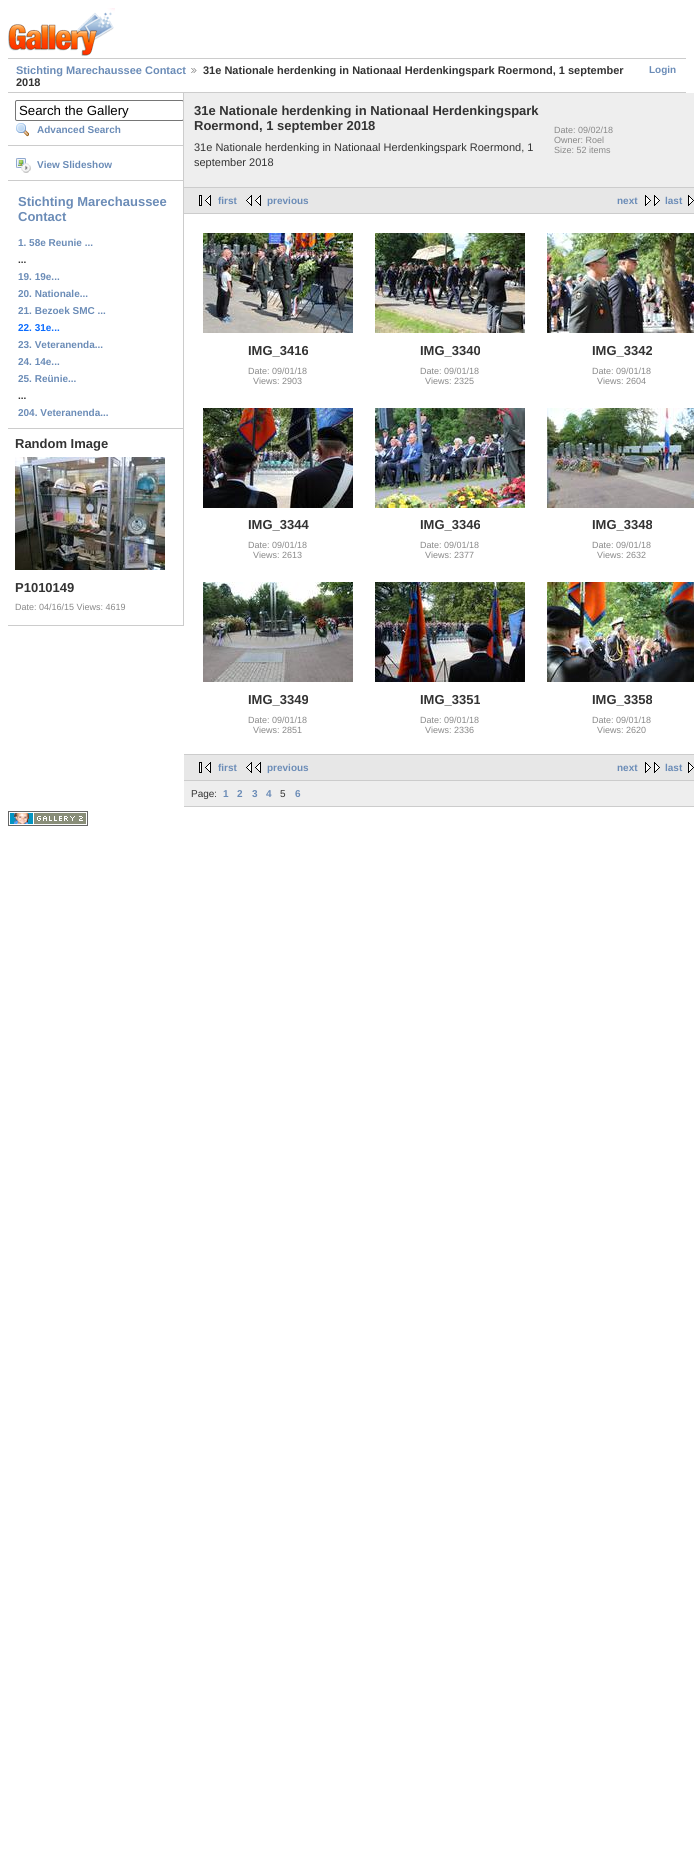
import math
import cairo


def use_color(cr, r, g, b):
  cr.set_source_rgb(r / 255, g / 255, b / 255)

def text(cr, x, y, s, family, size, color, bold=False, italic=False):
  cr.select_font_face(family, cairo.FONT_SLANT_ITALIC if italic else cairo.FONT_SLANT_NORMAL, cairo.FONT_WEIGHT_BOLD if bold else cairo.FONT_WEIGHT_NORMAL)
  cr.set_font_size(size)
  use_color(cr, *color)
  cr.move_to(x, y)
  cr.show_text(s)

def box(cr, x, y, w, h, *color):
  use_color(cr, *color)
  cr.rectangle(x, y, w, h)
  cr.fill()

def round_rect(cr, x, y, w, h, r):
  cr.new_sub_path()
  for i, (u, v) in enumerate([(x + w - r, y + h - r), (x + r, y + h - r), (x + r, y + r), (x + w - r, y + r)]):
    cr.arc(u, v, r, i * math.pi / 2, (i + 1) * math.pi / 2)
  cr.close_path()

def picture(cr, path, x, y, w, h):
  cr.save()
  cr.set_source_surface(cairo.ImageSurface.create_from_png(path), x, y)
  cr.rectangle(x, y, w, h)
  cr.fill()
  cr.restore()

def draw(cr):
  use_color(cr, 255, 255, 255)
  cr.paint()
  picture(cr, "img_01.png", 8, 8, 107, 48)
  box(cr, 8, 58, 678, 1, 204, 204, 204)
  box(cr, 8, 92, 678, 1, 204, 204, 204)
  picture(cr, "img_02.png", 191, 68, 6, 5)
  box(cr, 183, 93, 1, 533, 204, 204, 204)
  box(cr, 8, 145, 175, 1, 204, 204, 204)
  cr.save()
  cr.rectangle(8, 93, 175, 533)
  cr.clip()
  round_rect(cr, 15.5, 100.5, 168, 20, 1.5)
  use_color(cr, 118, 118, 118)
  cr.set_line_width(1)
  cr.stroke()
  cr.restore()
  picture(cr, "img_03.png", 16, 123, 13, 14)
  box(cr, 8, 180, 175, 1, 204, 204, 204)
  picture(cr, "img_04.png", 16, 158, 15, 15)
  box(cr, 8, 428, 175, 1, 204, 204, 204)
  box(cr, 8, 625, 175, 1, 204, 204, 204)
  picture(cr, "img_05.png", 15, 457, 150, 113)
  box(cr, 184, 93, 510, 94, 238, 238, 238)
  box(cr, 184, 187, 510, 1, 204, 204, 204)
  box(cr, 184, 188, 510, 25, 231, 231, 231)
  box(cr, 184, 213, 510, 1, 204, 204, 204)
  picture(cr, "img_06.png", 199, 195, 12, 11)
  picture(cr, "img_07.png", 246, 195, 15, 11)
  picture(cr, "img_08.png", 645, 195, 15, 11)
  picture(cr, "img_09.png", 688, 195, 6, 11)
  box(cr, 184, 754, 510, 1, 204, 204, 204)
  picture(cr, "img_10.png", 203, 233, 150, 100)
  picture(cr, "img_11.png", 375, 233, 150, 100)
  picture(cr, "img_12.png", 547, 233, 147, 100)
  picture(cr, "img_13.png", 203, 408, 150, 100)
  picture(cr, "img_14.png", 375, 408, 150, 100)
  picture(cr, "img_15.png", 547, 408, 147, 100)
  picture(cr, "img_16.png", 203, 582, 150, 100)
  picture(cr, "img_17.png", 375, 582, 150, 100)
  picture(cr, "img_18.png", 547, 582, 147, 100)
  box(cr, 184, 755, 510, 25, 231, 231, 231)
  box(cr, 184, 780, 510, 1, 204, 204, 204)
  picture(cr, "img_06.png", 199, 762, 12, 11)
  picture(cr, "img_07.png", 246, 762, 15, 11)
  picture(cr, "img_08.png", 645, 762, 15, 11)
  picture(cr, "img_09.png", 688, 762, 6, 11)
  box(cr, 184, 781, 510, 25, 238, 238, 238)
  box(cr, 184, 806, 510, 1, 204, 204, 204)
  picture(cr, "img_19.png", 8, 811, 80, 15)
  text(cr, 16, 74, "Stichting Marechaussee Contact", "Liberation Sans", 11, (107, 140, 183), bold=True)
  text(cr, 203, 74, "31e Nationale herdenking in Nationaal Herdenkingspark Roermond, 1 september", "Liberation Sans", 11, (51, 51, 51), bold=True)
  text(cr, 16, 86, "2018", "Liberation Sans", 11, (51, 51, 51), bold=True)
  text(cr, 649, 73, "Login", "Liberation Sans", 10, (107, 140, 183), bold=True)
  text(cr, 19, 115, "Search the Gallery", "Liberation Sans", 13.25, (0, 0, 0))
  text(cr, 37, 133, "Advanced Search", "Liberation Sans", 10, (107, 140, 183), bold=True)
  text(cr, 37, 168, "View Slideshow", "Liberation Sans", 10, (107, 140, 183), bold=True)
  text(cr, 18, 206, "Stichting Marechaussee", "Liberation Sans", 13, (107, 140, 183), bold=True)
  text(cr, 18, 221, "Contact", "Liberation Sans", 13, (107, 140, 183), bold=True)
  text(cr, 18, 246, "1. 58e Reunie ...", "Liberation Sans", 10, (107, 140, 183), bold=True)
  text(cr, 18, 263, "...", "Liberation Sans", 10, (51, 51, 51), bold=True)
  text(cr, 18, 280, "19. 19e...", "Liberation Sans", 10, (107, 140, 183), bold=True)
  text(cr, 18, 297, "20. Nationale...", "Liberation Sans", 10, (107, 140, 183), bold=True)
  text(cr, 18, 314, "21. Bezoek SMC ...", "Liberation Sans", 10, (107, 140, 183), bold=True)
  text(cr, 18, 331, "22. 31e...", "Liberation Sans", 10, (11, 108, 255), bold=True)
  text(cr, 18, 348, "23. Veteranenda...", "Liberation Sans", 10, (107, 140, 183), bold=True)
  text(cr, 18, 365, "24. 14e...", "Liberation Sans", 10, (107, 140, 183), bold=True)
  text(cr, 18, 382, "25. Reünie...", "Liberation Sans", 10, (107, 140, 183), bold=True)
  text(cr, 18, 399, "...", "Liberation Sans", 10, (51, 51, 51), bold=True)
  text(cr, 18, 416, "204. Veteranenda...", "Liberation Sans", 10, (107, 140, 183), bold=True)
  text(cr, 15, 448, "Random Image", "Liberation Sans", 13, (51, 51, 51), bold=True)
  text(cr, 15, 592, "P1010149", "Liberation Sans", 13, (51, 51, 51), bold=True)
  text(cr, 15, 610, "Date: 04/16/15 Views: 4619", "Liberation Sans", 9, (136, 136, 136))
  text(cr, 194, 115, "31e Nationale herdenking in Nationaal Herdenkingspark", "Liberation Sans", 13, (51, 51, 51), bold=True)
  text(cr, 194, 130, "Roermond, 1 september 2018", "Liberation Sans", 13, (51, 51, 51), bold=True)
  text(cr, 194, 151, "31e Nationale herdenking in Nationaal Herdenkingspark Roermond, 1", "Liberation Sans", 11, (51, 51, 51))
  text(cr, 194, 166, "september 2018", "Liberation Sans", 11, (51, 51, 51))
  text(cr, 554, 133, "Date: 09/02/18", "Liberation Sans", 9, (136, 136, 136))
  text(cr, 554, 143, "Owner: Roel", "Liberation Sans", 9, (136, 136, 136))
  text(cr, 554, 153, "Size: 52 items", "Liberation Sans", 9, (136, 136, 136))
  text(cr, 218, 204, "first", "Liberation Sans", 10, (107, 140, 183), bold=True)
  text(cr, 267, 204, "previous", "Liberation Sans", 10, (107, 140, 183), bold=True)
  text(cr, 617, 204, "next", "Liberation Sans", 10, (107, 140, 183), bold=True)
  text(cr, 665, 204, "last", "Liberation Sans", 10, (107, 140, 183), bold=True)
  text(cr, 248, 355, "IMG_3416", "Liberation Sans", 13, (51, 51, 51), bold=True)
  text(cr, 248, 374, "Date: 09/01/18", "Liberation Sans", 9, (136, 136, 136))
  text(cr, 253, 384, "Views: 2903", "Liberation Sans", 9, (136, 136, 136))
  text(cr, 420, 355, "IMG_3340", "Liberation Sans", 13, (51, 51, 51), bold=True)
  text(cr, 420, 374, "Date: 09/01/18", "Liberation Sans", 9, (136, 136, 136))
  text(cr, 425, 384, "Views: 2325", "Liberation Sans", 9, (136, 136, 136))
  text(cr, 592, 355, "IMG_3342", "Liberation Sans", 13, (51, 51, 51), bold=True)
  text(cr, 592, 374, "Date: 09/01/18", "Liberation Sans", 9, (136, 136, 136))
  text(cr, 597, 384, "Views: 2604", "Liberation Sans", 9, (136, 136, 136))
  text(cr, 248, 529, "IMG_3344", "Liberation Sans", 13, (51, 51, 51), bold=True)
  text(cr, 248, 548, "Date: 09/01/18", "Liberation Sans", 9, (136, 136, 136))
  text(cr, 253, 558, "Views: 2613", "Liberation Sans", 9, (136, 136, 136))
  text(cr, 420, 529, "IMG_3346", "Liberation Sans", 13, (51, 51, 51), bold=True)
  text(cr, 420, 548, "Date: 09/01/18", "Liberation Sans", 9, (136, 136, 136))
  text(cr, 425, 558, "Views: 2377", "Liberation Sans", 9, (136, 136, 136))
  text(cr, 592, 529, "IMG_3348", "Liberation Sans", 13, (51, 51, 51), bold=True)
  text(cr, 592, 548, "Date: 09/01/18", "Liberation Sans", 9, (136, 136, 136))
  text(cr, 597, 558, "Views: 2632", "Liberation Sans", 9, (136, 136, 136))
  text(cr, 248, 704, "IMG_3349", "Liberation Sans", 13, (51, 51, 51), bold=True)
  text(cr, 248, 723, "Date: 09/01/18", "Liberation Sans", 9, (136, 136, 136))
  text(cr, 253, 733, "Views: 2851", "Liberation Sans", 9, (136, 136, 136))
  text(cr, 420, 704, "IMG_3351", "Liberation Sans", 13, (51, 51, 51), bold=True)
  text(cr, 420, 723, "Date: 09/01/18", "Liberation Sans", 9, (136, 136, 136))
  text(cr, 425, 733, "Views: 2336", "Liberation Sans", 9, (136, 136, 136))
  text(cr, 592, 704, "IMG_3358", "Liberation Sans", 13, (51, 51, 51), bold=True)
  text(cr, 592, 723, "Date: 09/01/18", "Liberation Sans", 9, (136, 136, 136))
  text(cr, 597, 733, "Views: 2620", "Liberation Sans", 9, (136, 136, 136))
  text(cr, 218, 771, "first", "Liberation Sans", 10, (107, 140, 183), bold=True)
  text(cr, 267, 771, "previous", "Liberation Sans", 10, (107, 140, 183), bold=True)
  text(cr, 617, 771, "next", "Liberation Sans", 10, (107, 140, 183), bold=True)
  text(cr, 665, 771, "last", "Liberation Sans", 10, (107, 140, 183), bold=True)
  text(cr, 191, 797, "Page:", "Liberation Sans", 10, (51, 51, 51))
  text(cr, 223, 797, "1", "Liberation Sans", 10, (107, 140, 183), bold=True)
  text(cr, 237, 797, "2", "Liberation Sans", 10, (107, 140, 183), bold=True)
  text(cr, 252, 797, "3", "Liberation Sans", 10, (107, 140, 183), bold=True)
  text(cr, 266, 797, "4", "Liberation Sans", 10, (107, 140, 183), bold=True)
  text(cr, 280, 797, "5", "Liberation Sans", 10, (51, 51, 51))
  text(cr, 295, 797, "6", "Liberation Sans", 10, (107, 140, 183), bold=True)


surface = cairo.ImageSurface(cairo.FORMAT_RGB24, 694, 1856)
cr = cairo.Context(surface)
options = cairo.FontOptions()
options.set_hint_metrics(cairo.HINT_METRICS_OFF)
options.set_hint_style(cairo.HINT_STYLE_NONE)
cr.set_font_options(options)
cr.set_miter_limit(4)
draw(cr)
surface.write_to_png("out.png")
